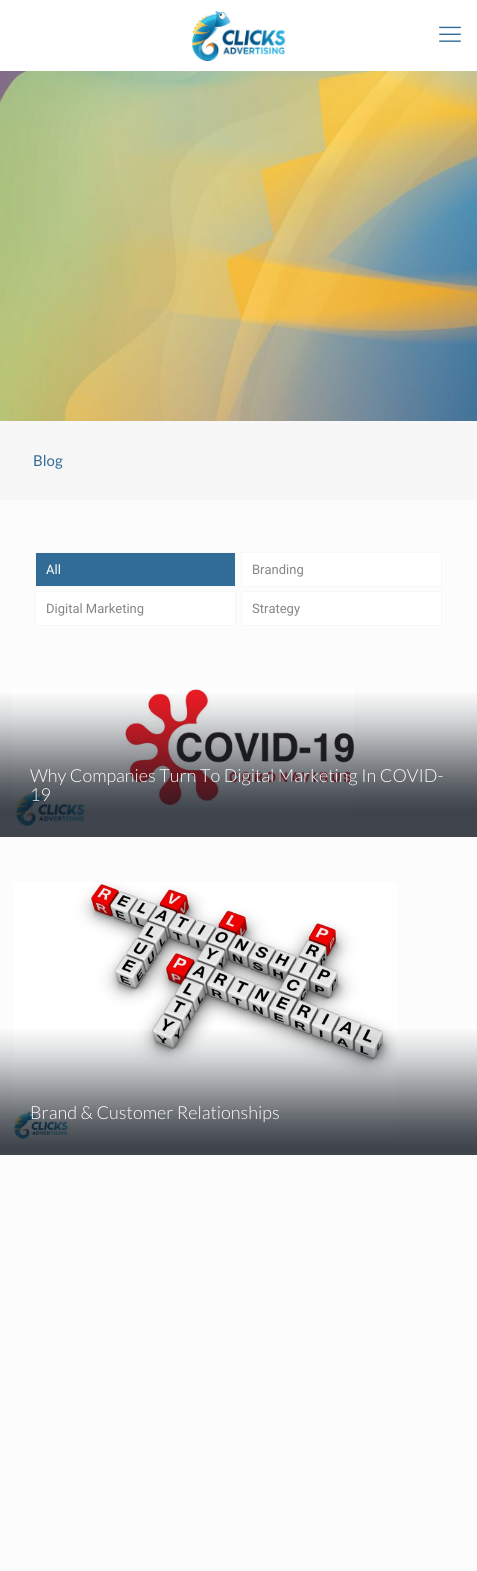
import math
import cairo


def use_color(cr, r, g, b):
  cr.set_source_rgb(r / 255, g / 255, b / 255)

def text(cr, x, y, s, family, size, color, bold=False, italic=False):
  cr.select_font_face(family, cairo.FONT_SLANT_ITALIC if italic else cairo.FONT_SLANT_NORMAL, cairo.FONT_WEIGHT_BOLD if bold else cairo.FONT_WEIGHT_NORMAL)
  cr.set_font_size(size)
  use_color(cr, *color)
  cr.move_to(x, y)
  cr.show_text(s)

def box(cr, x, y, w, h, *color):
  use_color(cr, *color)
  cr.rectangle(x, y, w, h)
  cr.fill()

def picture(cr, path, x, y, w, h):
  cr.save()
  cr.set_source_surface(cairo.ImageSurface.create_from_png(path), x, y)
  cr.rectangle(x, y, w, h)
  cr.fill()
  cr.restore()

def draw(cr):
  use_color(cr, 252, 252, 252)
  cr.paint()
  box(cr, 0, 0, 477, 71, 255, 255, 255)
  picture(cr, "img_01.png", 192, 11, 93, 50)
  picture(cr, "img_02.png", 439, 26, 22, 16)
  picture(cr, "img_03.png", 0, 71, 477, 350)
  box(cr, 0, 421, 477, 79, 247, 247, 247)
  use_color(cr, 49, 108, 150)
  cr.rectangle(35.5, 552.5, 200, 34)
  cr.fill_preserve()
  use_color(cr, 247, 247, 247)
  cr.set_line_width(1)
  cr.stroke()
  use_color(cr, 255, 255, 255)
  cr.rectangle(241.5, 552.5, 200, 34)
  cr.fill_preserve()
  use_color(cr, 247, 247, 247)
  cr.stroke()
  use_color(cr, 255, 255, 255)
  cr.rectangle(35.5, 591.5, 200, 34)
  cr.fill_preserve()
  use_color(cr, 247, 247, 247)
  cr.stroke()
  use_color(cr, 255, 255, 255)
  cr.rectangle(241.5, 591.5, 200, 34)
  cr.fill_preserve()
  use_color(cr, 247, 247, 247)
  cr.stroke()
  picture(cr, "img_04.png", 12, 689, 342, 139)
  picture(cr, "img_05.png", 0, 693, 477, 144)
  picture(cr, "img_06.png", 13, 882, 384, 258)
  picture(cr, "img_07.png", 0, 1030, 477, 125)
  text(cr, 33, 466, "Blog", "Lato", 15, (49, 108, 150))
  text(cr, 46, 574, "All", "Roboto", 13, (255, 255, 255))
  text(cr, 252, 574, "Branding", "Roboto", 13, (133, 133, 133))
  text(cr, 46, 613, "Digital Marketing", "Roboto", 13, (133, 133, 133))
  text(cr, 252, 613, "Strategy", "Roboto", 13, (133, 133, 133))
  text(cr, 30, 782, "Why Companies Turn To Digital Marketing In COVID-", "Lato Light", 18, (255, 255, 255))
  text(cr, 30, 801, "19", "Lato Light", 18, (255, 255, 255))
  text(cr, 30, 1119, "Brand & Customer Relationships", "Lato Light", 18, (255, 255, 255))


surface = cairo.ImageSurface(cairo.FORMAT_RGB24, 477, 1571)
cr = cairo.Context(surface)
options = cairo.FontOptions()
options.set_hint_metrics(cairo.HINT_METRICS_OFF)
options.set_hint_style(cairo.HINT_STYLE_NONE)
cr.set_font_options(options)
cr.set_miter_limit(4)
draw(cr)
surface.write_to_png("out.png")
